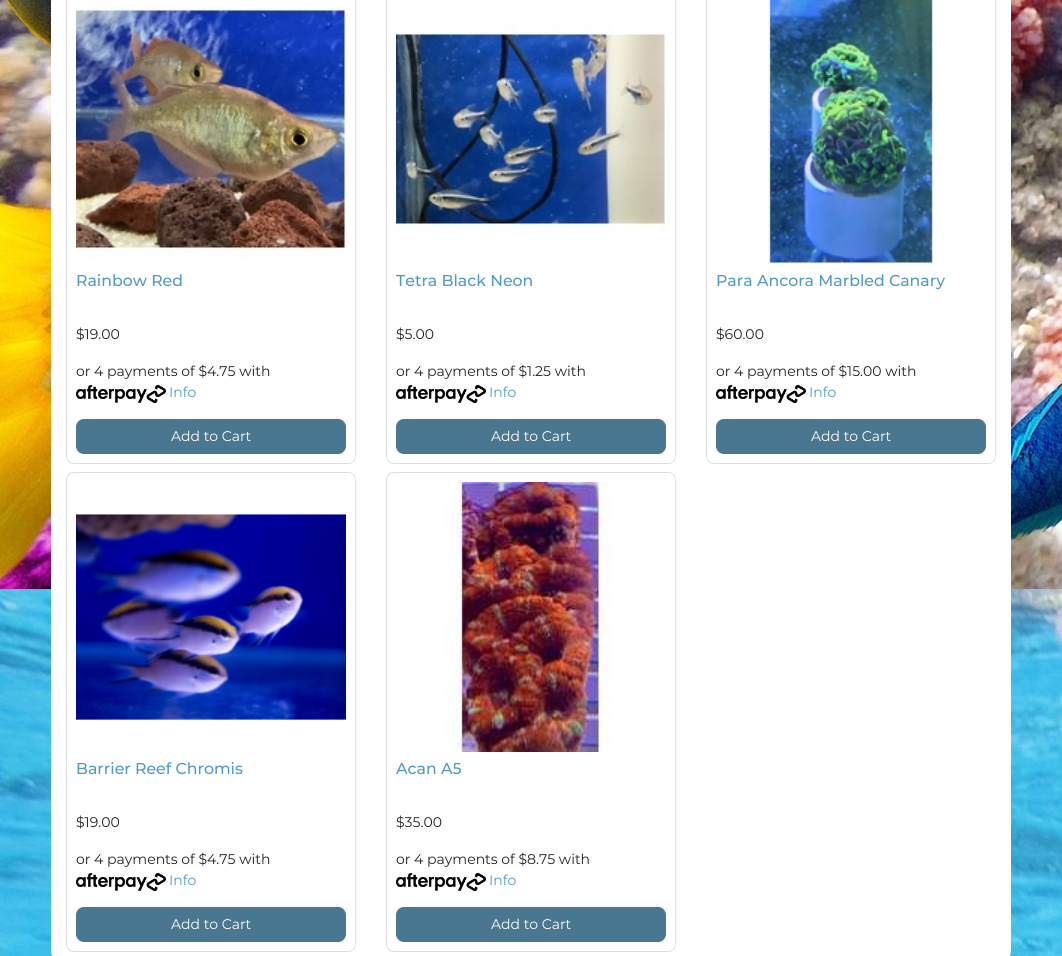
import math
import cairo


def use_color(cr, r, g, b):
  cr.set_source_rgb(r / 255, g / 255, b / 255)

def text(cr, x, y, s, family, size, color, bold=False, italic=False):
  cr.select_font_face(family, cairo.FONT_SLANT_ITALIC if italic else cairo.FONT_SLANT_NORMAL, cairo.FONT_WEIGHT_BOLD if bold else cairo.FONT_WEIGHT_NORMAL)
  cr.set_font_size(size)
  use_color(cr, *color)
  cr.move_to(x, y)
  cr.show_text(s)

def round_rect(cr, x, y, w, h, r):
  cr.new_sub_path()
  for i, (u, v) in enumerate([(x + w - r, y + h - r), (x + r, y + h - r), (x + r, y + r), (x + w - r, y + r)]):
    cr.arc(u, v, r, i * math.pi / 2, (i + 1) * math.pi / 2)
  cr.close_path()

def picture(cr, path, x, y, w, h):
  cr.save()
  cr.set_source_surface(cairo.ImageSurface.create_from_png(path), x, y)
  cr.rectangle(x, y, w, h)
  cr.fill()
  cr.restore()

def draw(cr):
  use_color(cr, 255, 255, 255)
  cr.paint()
  picture(cr, "img_01.png", 0, 0, 1062, 956)
  use_color(cr, 255, 255, 255)
  cr.new_path()
  cr.move_to(51, -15)
  cr.line_to(1011, -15)
  cr.line_to(1011, 950)
  cr.curve_to(1011, 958.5, 1004.5, 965, 996, 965)
  cr.line_to(66, 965)
  cr.curve_to(57.5, 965, 51, 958.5, 51, 950)
  cr.close_path()
  cr.fill()
  round_rect(cr, 66.5, -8.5, 289, 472, 7.5)
  use_color(cr, 223, 223, 223)
  cr.set_line_width(1)
  cr.stroke()
  picture(cr, "img_02.png", 76, 4, 270, 254)
  picture(cr, "img_03.png", 76, 385, 90, 18)
  use_color(cr, 73, 119, 145)
  round_rect(cr, 76.5, 419.5, 269, 34, 7.5)
  cr.fill_preserve()
  cr.stroke()
  round_rect(cr, 386.5, -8.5, 289, 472, 7.5)
  use_color(cr, 223, 223, 223)
  cr.stroke()
  picture(cr, "img_04.png", 396, 19, 270, 215)
  picture(cr, "img_05.png", 396, 385, 90, 18)
  use_color(cr, 73, 119, 145)
  round_rect(cr, 396.5, 419.5, 269, 34, 7.5)
  cr.fill_preserve()
  cr.stroke()
  round_rect(cr, 706.5, -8.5, 289, 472, 7.5)
  use_color(cr, 223, 223, 223)
  cr.stroke()
  picture(cr, "img_06.png", 768, 0, 166, 264)
  picture(cr, "img_07.png", 716, 385, 90, 18)
  use_color(cr, 73, 119, 145)
  round_rect(cr, 716.5, 419.5, 269, 34, 7.5)
  cr.fill_preserve()
  cr.stroke()
  round_rect(cr, 66.5, 472.5, 289, 479, 7.5)
  use_color(cr, 223, 223, 223)
  cr.stroke()
  picture(cr, "img_08.png", 76, 514, 270, 206)
  picture(cr, "img_03.png", 76, 873, 90, 18)
  use_color(cr, 73, 119, 145)
  round_rect(cr, 76.5, 907.5, 269, 34, 7.5)
  cr.fill_preserve()
  cr.stroke()
  round_rect(cr, 386.5, 472.5, 289, 479, 7.5)
  use_color(cr, 223, 223, 223)
  cr.stroke()
  picture(cr, "img_09.png", 443, 482, 170, 270)
  picture(cr, "img_05.png", 396, 873, 90, 18)
  use_color(cr, 73, 119, 145)
  round_rect(cr, 396.5, 907.5, 269, 34, 7.5)
  cr.fill_preserve()
  cr.stroke()
  text(cr, 76, 286, "Rainbow Red", "Montserrat Medium", 15.75, (81, 154, 196))
  text(cr, 76, 339, "$19.00", "Montserrat", 14, (34, 34, 34))
  text(cr, 76, 376, "or 4 payments of $4.75 with", "Montserrat", 14, (34, 34, 34))
  text(cr, 169, 397, "Info", "Montserrat", 14, (81, 154, 196))
  text(cr, 171, 441, "Add to Cart", "Montserrat", 14, (255, 255, 255))
  text(cr, 396, 286, "Tetra Black Neon", "Montserrat Medium", 15.75, (81, 154, 196))
  text(cr, 396, 339, "$5.00", "Montserrat", 14, (34, 34, 34))
  text(cr, 396, 376, "or 4 payments of $1.25 with", "Montserrat", 14, (34, 34, 34))
  text(cr, 489, 397, "Info", "Montserrat", 14, (81, 154, 196))
  text(cr, 491, 441, "Add to Cart", "Montserrat", 14, (255, 255, 255))
  text(cr, 716, 286, "Para Ancora Marbled Canary", "Montserrat Medium", 15.75, (81, 154, 196))
  text(cr, 716, 339, "$60.00", "Montserrat", 14, (34, 34, 34))
  text(cr, 716, 376, "or 4 payments of $15.00 with", "Montserrat", 14, (34, 34, 34))
  text(cr, 809, 397, "Info", "Montserrat", 14, (81, 154, 196))
  text(cr, 811, 441, "Add to Cart", "Montserrat", 14, (255, 255, 255))
  text(cr, 76, 774, "Barrier Reef Chromis", "Montserrat Medium", 15.75, (81, 154, 196))
  text(cr, 76, 827, "$19.00", "Montserrat", 14, (34, 34, 34))
  text(cr, 76, 864, "or 4 payments of $4.75 with", "Montserrat", 14, (34, 34, 34))
  text(cr, 169, 885, "Info", "Montserrat", 14, (81, 154, 196))
  text(cr, 171, 929, "Add to Cart", "Montserrat", 14, (255, 255, 255))
  text(cr, 396, 774, "Acan A5", "Montserrat Medium", 15.75, (81, 154, 196))
  text(cr, 396, 827, "$35.00", "Montserrat", 14, (34, 34, 34))
  text(cr, 396, 864, "or 4 payments of $8.75 with", "Montserrat", 14, (34, 34, 34))
  text(cr, 489, 885, "Info", "Montserrat", 14, (81, 154, 196))
  text(cr, 491, 929, "Add to Cart", "Montserrat", 14, (255, 255, 255))


surface = cairo.ImageSurface(cairo.FORMAT_RGB24, 1062, 956)
cr = cairo.Context(surface)
options = cairo.FontOptions()
options.set_hint_metrics(cairo.HINT_METRICS_OFF)
options.set_hint_style(cairo.HINT_STYLE_NONE)
cr.set_font_options(options)
cr.set_miter_limit(4)
draw(cr)
surface.write_to_png("out.png")
